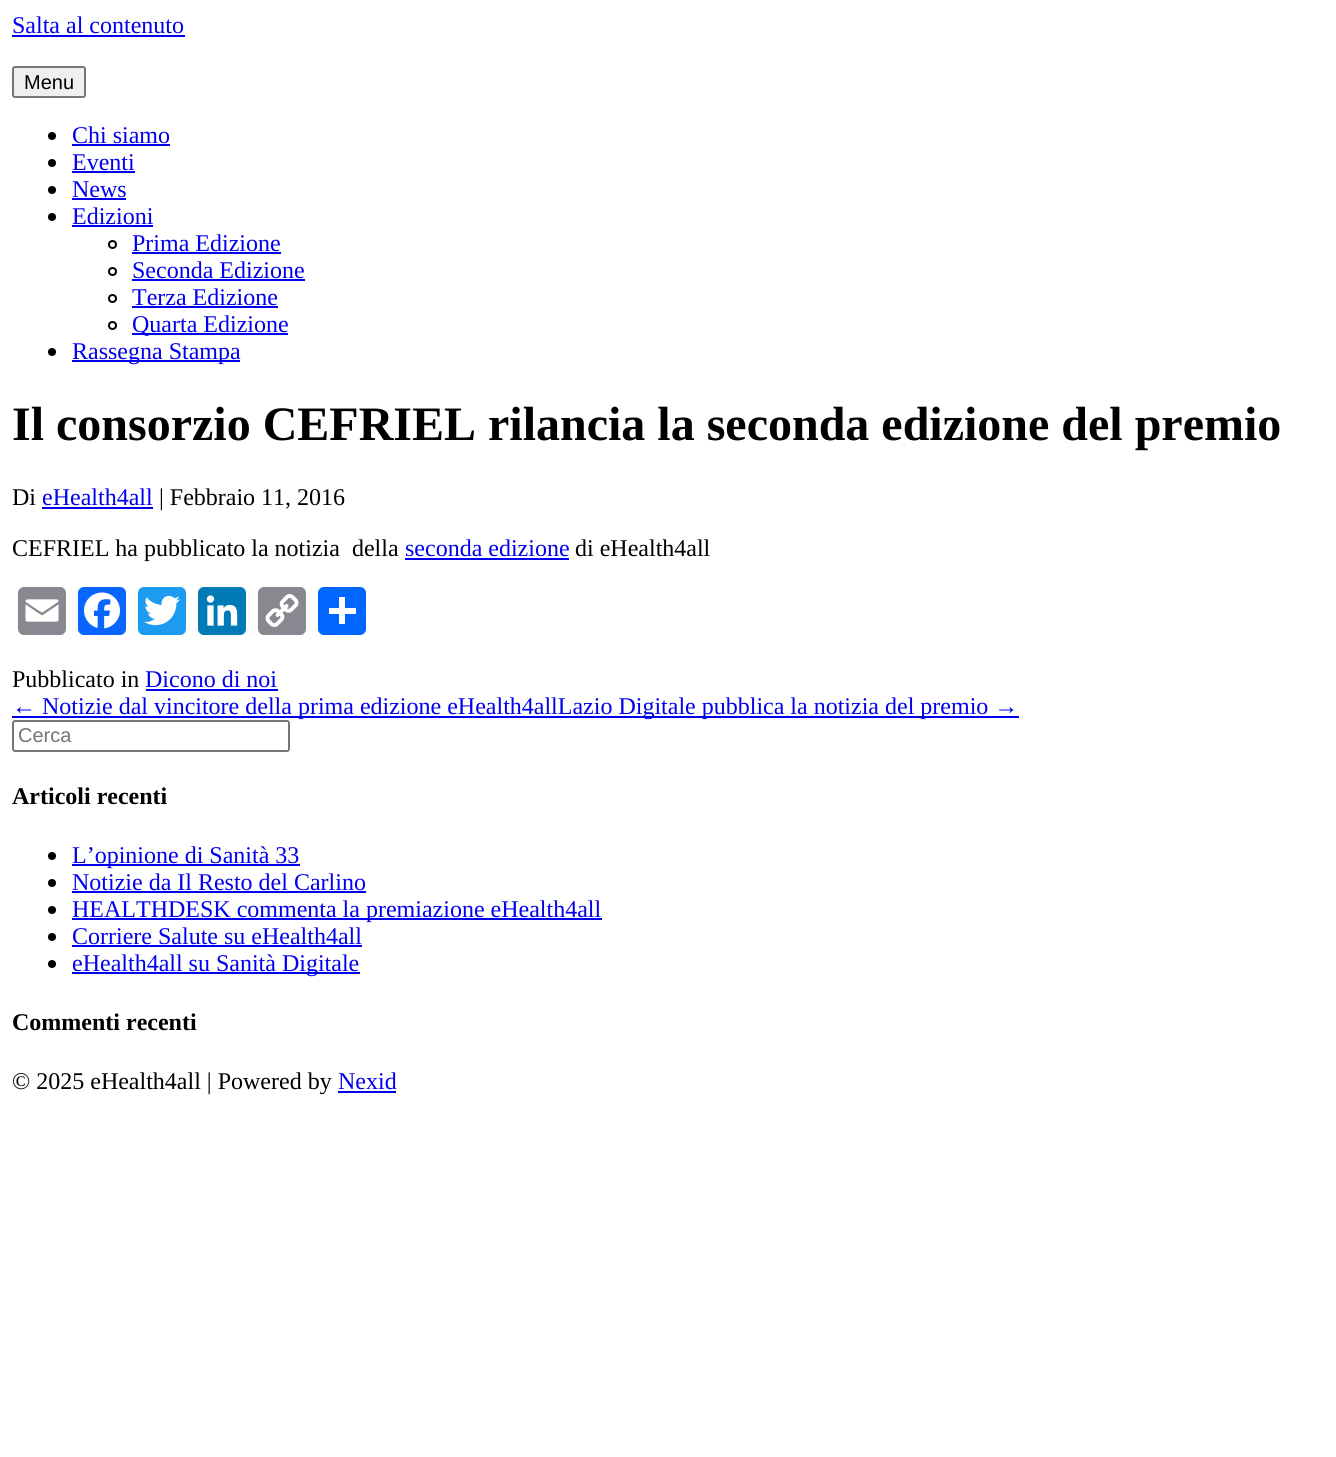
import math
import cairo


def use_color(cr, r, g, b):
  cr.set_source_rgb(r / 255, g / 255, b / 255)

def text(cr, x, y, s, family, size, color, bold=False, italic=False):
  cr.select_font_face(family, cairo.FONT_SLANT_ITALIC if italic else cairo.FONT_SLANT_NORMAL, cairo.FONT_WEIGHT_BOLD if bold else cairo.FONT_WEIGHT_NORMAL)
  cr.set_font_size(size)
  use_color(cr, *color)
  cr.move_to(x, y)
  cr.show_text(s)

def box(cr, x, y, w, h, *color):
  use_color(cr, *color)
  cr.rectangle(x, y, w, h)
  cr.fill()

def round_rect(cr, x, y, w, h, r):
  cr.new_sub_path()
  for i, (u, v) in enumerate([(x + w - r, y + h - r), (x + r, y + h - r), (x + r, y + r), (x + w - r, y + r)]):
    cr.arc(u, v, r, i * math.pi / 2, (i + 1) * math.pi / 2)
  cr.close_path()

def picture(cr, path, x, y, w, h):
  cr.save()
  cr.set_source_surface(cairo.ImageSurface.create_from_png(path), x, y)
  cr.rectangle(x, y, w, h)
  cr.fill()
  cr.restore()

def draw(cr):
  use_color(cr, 255, 255, 255)
  cr.paint()
  box(cr, 12, 35, 173, 2, 0, 0, 238)
  use_color(cr, 239, 239, 239)
  round_rect(cr, 13, 67, 72, 30, 2)
  cr.fill_preserve()
  use_color(cr, 118, 118, 118)
  cr.stroke()
  use_color(cr, 0, 0, 0)
  cr.arc(52, 136, 4, 0, 2 * math.pi)
  cr.fill()
  box(cr, 72, 144, 98, 2, 0, 0, 238)
  use_color(cr, 0, 0, 0)
  cr.arc(52, 163, 4, 0, 2 * math.pi)
  cr.fill()
  box(cr, 72, 171, 63, 2, 0, 0, 238)
  use_color(cr, 0, 0, 0)
  cr.arc(52, 190, 4, 0, 2 * math.pi)
  cr.fill()
  box(cr, 72, 198, 54, 2, 0, 0, 238)
  use_color(cr, 0, 0, 0)
  cr.arc(52, 217, 4, 0, 2 * math.pi)
  cr.fill()
  box(cr, 72, 225, 81, 2, 0, 0, 238)
  cr.arc(112.5, 244.5, 3.5, 0, 2 * math.pi)
  use_color(cr, 0, 0, 0)
  cr.stroke()
  box(cr, 132, 252, 149, 2, 0, 0, 238)
  cr.arc(112.5, 271.5, 3.5, 0, 2 * math.pi)
  use_color(cr, 0, 0, 0)
  cr.stroke()
  box(cr, 132, 279, 173, 2, 0, 0, 238)
  cr.arc(112.5, 298.5, 3.5, 0, 2 * math.pi)
  use_color(cr, 0, 0, 0)
  cr.stroke()
  box(cr, 132, 306, 146, 2, 0, 0, 238)
  cr.arc(112.5, 325.5, 3.5, 0, 2 * math.pi)
  use_color(cr, 0, 0, 0)
  cr.stroke()
  box(cr, 132, 333, 156, 2, 0, 0, 238)
  use_color(cr, 0, 0, 0)
  cr.arc(52, 352, 4, 0, 2 * math.pi)
  cr.fill()
  box(cr, 72, 360, 168, 2, 0, 0, 238)
  box(cr, 42, 507, 111, 2, 0, 0, 238)
  box(cr, 405, 558, 164, 2, 0, 0, 238)
  use_color(cr, 136, 137, 144)
  round_rect(cr, 18, 587, 48, 48, 6)
  cr.fill()
  picture(cr, "img_01.png", 25, 599, 34, 23)
  use_color(cr, 8, 102, 255)
  round_rect(cr, 78, 587, 48, 48, 6)
  cr.fill()
  picture(cr, "img_02.png", 84, 592, 36, 37)
  use_color(cr, 29, 155, 240)
  round_rect(cr, 138, 587, 48, 48, 6)
  cr.fill()
  picture(cr, "img_03.png", 144, 595, 36, 31)
  use_color(cr, 0, 123, 181)
  round_rect(cr, 198, 587, 48, 48, 6)
  cr.fill()
  picture(cr, "img_04.png", 206, 595, 32, 31)
  use_color(cr, 136, 137, 144)
  round_rect(cr, 258, 587, 48, 48, 6)
  cr.fill()
  picture(cr, "img_05.png", 265, 594, 34, 33)
  use_color(cr, 1, 102, 255)
  round_rect(cr, 318, 587, 48, 48, 6)
  cr.fill()
  box(cr, 339, 597, 6, 27, 255, 255, 255)
  box(cr, 329, 608, 27, 6, 255, 255, 255)
  box(cr, 146, 689, 132, 2, 0, 0, 238)
  box(cr, 12, 716, 1007, 2, 0, 0, 238)
  round_rect(cr, 13, 721, 276, 30, 2)
  use_color(cr, 118, 118, 118)
  cr.stroke()
  use_color(cr, 0, 0, 0)
  cr.arc(52, 856, 4, 0, 2 * math.pi)
  cr.fill()
  box(cr, 72, 864, 228, 2, 0, 0, 238)
  use_color(cr, 0, 0, 0)
  cr.arc(52, 883, 4, 0, 2 * math.pi)
  cr.fill()
  box(cr, 72, 891, 294, 2, 0, 0, 238)
  use_color(cr, 0, 0, 0)
  cr.arc(52, 910, 4, 0, 2 * math.pi)
  cr.fill()
  box(cr, 72, 918, 530, 2, 0, 0, 238)
  use_color(cr, 0, 0, 0)
  cr.arc(52, 937, 4, 0, 2 * math.pi)
  cr.fill()
  box(cr, 72, 945, 290, 2, 0, 0, 238)
  use_color(cr, 0, 0, 0)
  cr.arc(52, 964, 4, 0, 2 * math.pi)
  cr.fill()
  box(cr, 72, 972, 288, 2, 0, 0, 238)
  box(cr, 338, 1091, 58, 2, 0, 0, 238)
  text(cr, 12, 33, "Salta al contenuto", "Liberation Serif", 24, (0, 0, 238))
  text(cr, 24, 89, "Menu", "Liberation Sans", 20, (0, 0, 0))
  text(cr, 72, 143, "Chi siamo", "Liberation Serif", 24, (0, 0, 238))
  text(cr, 72, 170, "Eventi", "Liberation Serif", 24, (0, 0, 238))
  text(cr, 72, 197, "News", "Liberation Serif", 24, (0, 0, 238))
  text(cr, 72, 224, "Edizioni", "Liberation Serif", 24, (0, 0, 238))
  text(cr, 132, 251, "Prima Edizione", "Liberation Serif", 24, (0, 0, 238))
  text(cr, 132, 278, "Seconda Edizione", "Liberation Serif", 24, (0, 0, 238))
  text(cr, 132, 305, "Terza Edizione", "Liberation Serif", 24, (0, 0, 238))
  text(cr, 132, 332, "Quarta Edizione", "Liberation Serif", 24, (0, 0, 238))
  text(cr, 72, 359, "Rassegna Stampa", "Liberation Serif", 24, (0, 0, 238))
  text(cr, 12, 440, "Il consorzio CEFRIEL rilancia la seconda edizione del premio", "Liberation Serif", 48, (0, 0, 0), bold=True)
  text(cr, 12, 505, "Di", "Liberation Serif", 24, (0, 0, 0))
  text(cr, 42, 505, "eHealth4all", "Liberation Serif", 24, (0, 0, 238))
  text(cr, 159, 505, "| Febbraio 11, 2016", "Liberation Serif", 24, (0, 0, 0))
  text(cr, 12, 556, "CEFRIEL ha pubblicato la notizia  della", "Liberation Serif", 24, (0, 0, 0))
  text(cr, 405, 556, "seconda edizione", "Liberation Serif", 24, (0, 0, 238))
  text(cr, 575, 556, "di eHealth4all", "Liberation Serif", 24, (0, 0, 0))
  text(cr, 12, 687, "Pubblicato in", "Liberation Serif", 24, (0, 0, 0))
  text(cr, 145, 687, "Dicono di noi", "Liberation Serif", 24, (0, 0, 238))
  text(cr, 12, 714, "← Notizie dal vincitore della prima edizione eHealth4allLazio Digitale pubblica la notizia del premio →", "Liberation Serif", 24, (0, 0, 238))
  text(cr, 18, 742, "Cerca", "Liberation Sans", 20, (117, 117, 117))
  text(cr, 12, 804, "Articoli recenti", "Liberation Serif", 24, (0, 0, 0), bold=True)
  text(cr, 72, 863, "L’opinione di Sanità 33", "Liberation Serif", 24, (0, 0, 238))
  text(cr, 72, 890, "Notizie da Il Resto del Carlino", "Liberation Serif", 24, (0, 0, 238))
  text(cr, 72, 917, "HEALTHDESK commenta la premiazione eHealth4all", "Liberation Serif", 24, (0, 0, 238))
  text(cr, 72, 944, "Corriere Salute su eHealth4all", "Liberation Serif", 24, (0, 0, 238))
  text(cr, 72, 971, "eHealth4all su Sanità Digitale", "Liberation Serif", 24, (0, 0, 238))
  text(cr, 12, 1030, "Commenti recenti", "Liberation Serif", 24, (0, 0, 0), bold=True)
  text(cr, 12, 1089, "© 2025 eHealth4all | Powered by", "Liberation Serif", 24, (0, 0, 0))
  text(cr, 338, 1089, "Nexid", "Liberation Serif", 24, (0, 0, 238))


surface = cairo.ImageSurface(cairo.FORMAT_RGB24, 1336, 1457)
cr = cairo.Context(surface)
options = cairo.FontOptions()
options.set_hint_metrics(cairo.HINT_METRICS_OFF)
options.set_hint_style(cairo.HINT_STYLE_NONE)
cr.set_font_options(options)
cr.set_miter_limit(4)
draw(cr)
surface.write_to_png("out.png")
